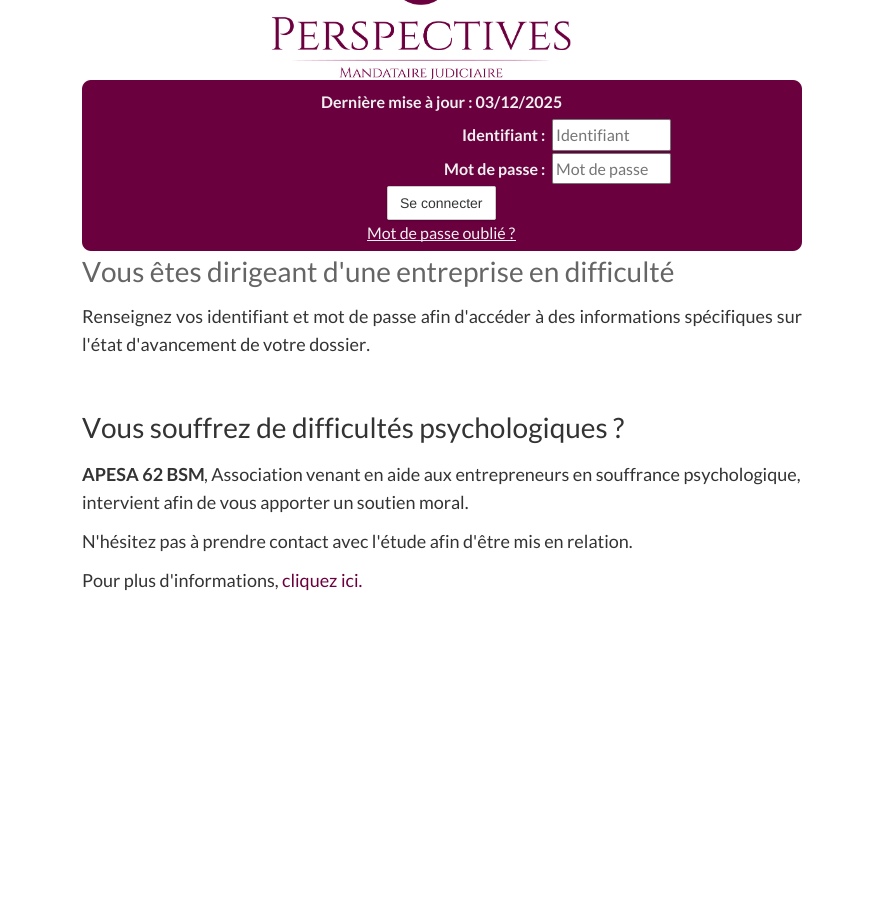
import math
import cairo


def use_color(cr, r, g, b):
  cr.set_source_rgb(r / 255, g / 255, b / 255)

def text(cr, x, y, s, family, size, color, bold=False, italic=False):
  cr.select_font_face(family, cairo.FONT_SLANT_ITALIC if italic else cairo.FONT_SLANT_NORMAL, cairo.FONT_WEIGHT_BOLD if bold else cairo.FONT_WEIGHT_NORMAL)
  cr.set_font_size(size)
  use_color(cr, *color)
  cr.move_to(x, y)
  cr.show_text(s)

def spaced_text(cr, x, y, s, letter, word):
  cr.move_to(x, y)
  for ch in s:
    cr.show_text(ch)
    cr.rel_move_to(letter + word * (ch == ' '), 0)

def box(cr, x, y, w, h, *color):
  use_color(cr, *color)
  cr.rectangle(x, y, w, h)
  cr.fill()

def round_rect(cr, x, y, w, h, r):
  cr.new_sub_path()
  for i, (u, v) in enumerate([(x + w - r, y + h - r), (x + r, y + h - r), (x + r, y + r), (x + w - r, y + r)]):
    cr.arc(u, v, r, i * math.pi / 2, (i + 1) * math.pi / 2)
  cr.close_path()

def shadow(cr, x, y, w, h, r, blur, alpha):
  cr.push_group_with_content(cairo.CONTENT_ALPHA)
  cr.set_operator(cairo.OPERATOR_SOURCE)
  for i in range(15, -16, -2):
    e = blur * i / 6
    if min(w, h) + 2 * e > 0:
      cr.set_source_rgba(0, 0, 0, alpha * math.erfc((i - 1) / 8.5) / 2)
      round_rect(cr, x - e, y - e, w + 2 * e, h + 2 * e, max(0, min(r + e + blur * .6, min(w, h) / 2 + e)))
      cr.fill()
  cr.mask(cr.pop_group())

def picture(cr, path, x, y, w, h):
  cr.save()
  cr.set_source_surface(cairo.ImageSurface.create_from_png(path), x, y)
  cr.rectangle(x, y, w, h)
  cr.fill()
  cr.restore()

def draw(cr):
  use_color(cr, 255, 255, 255)
  cr.paint()
  picture(cr, "img_01.png", 271, 0, 300, 80)
  use_color(cr, 106, 0, 62)
  round_rect(cr, 82, 80, 720, 171, 9)
  cr.fill()
  use_color(cr, 255, 255, 255)
  round_rect(cr, 552.5, 119.5, 118, 31, 1.5)
  cr.fill_preserve()
  use_color(cr, 118, 118, 118)
  cr.set_line_width(1)
  cr.stroke()
  use_color(cr, 255, 255, 255)
  round_rect(cr, 552.5, 153.5, 118, 30, 1.5)
  cr.fill_preserve()
  use_color(cr, 118, 118, 118)
  cr.stroke()
  use_color(cr, 0, 0, 0)
  shadow(cr, 387, 187, 109, 34, 2, 1, 0.2)
  use_color(cr, 255, 255, 255)
  round_rect(cr, 387.5, 186.5, 108, 33, 1.5)
  cr.fill_preserve()
  use_color(cr, 204, 204, 204)
  cr.stroke()
  box(cr, 367, 240, 149, 1, 240, 240, 240)
  text(cr, 321, 108, "Dernière mise à jour : 03/12/2025", "Lato", 16, (240, 240, 240), bold=True)
  text(cr, 462, 141, "Identifiant :", "Lato", 16, (240, 240, 240), bold=True)
  text(cr, 556, 141, "Identifiant", "Lato", 16, (117, 117, 117))
  text(cr, 444, 175, "Mot de passe :", "Lato", 16, (240, 240, 240), bold=True)
  text(cr, 556, 175, "Mot de passe", "Lato", 16, (117, 117, 117))
  text(cr, 400, 208, "Se connecter", "Liberation Sans", 14, (51, 51, 51))
  text(cr, 367, 239, "Mot de passe oublié ?", "Lato", 16, (240, 240, 240))
  text(cr, 82, 282, "Vous êtes dirigeant d'une entreprise en difficulté", "Lato", 28, (101, 101, 101))
  cr.set_font_size(18)
  use_color(cr, 51, 51, 51)
  spaced_text(cr, 82, 323, "Renseignez vos identifiant et mot de passe afin d'accéder à des informations spécifiques sur", 0, 0.6)
  text(cr, 82, 351, "l'état d'avancement de votre dossier.", "Lato", 18, (51, 51, 51))
  text(cr, 82, 438, "Vous souffrez de difficultés psychologiques ?", "Lato", 28, (51, 51, 51))
  text(cr, 82, 481, "APESA 62 BSM", "Lato", 18, (51, 51, 51), bold=True)
  text(cr, 204, 481, ", Association venant en aide aux entrepreneurs en souffrance psychologique,", "Lato", 18, (51, 51, 51))
  text(cr, 82, 509, "intervient afin de vous apporter un soutien moral.", "Lato", 18, (51, 51, 51))
  text(cr, 82, 548, "N'hésitez pas à prendre contact avec l'étude afin d'être mis en relation.", "Lato", 18, (51, 51, 51))
  text(cr, 82, 587, "Pour plus d'informations,", "Lato", 18, (51, 51, 51))
  text(cr, 282, 587, "cliquez ici.", "Lato", 18, (106, 0, 62))


surface = cairo.ImageSurface(cairo.FORMAT_RGB24, 883, 913)
cr = cairo.Context(surface)
options = cairo.FontOptions()
options.set_hint_metrics(cairo.HINT_METRICS_OFF)
options.set_hint_style(cairo.HINT_STYLE_NONE)
cr.set_font_options(options)
cr.set_miter_limit(4)
draw(cr)
surface.write_to_png("out.png")
